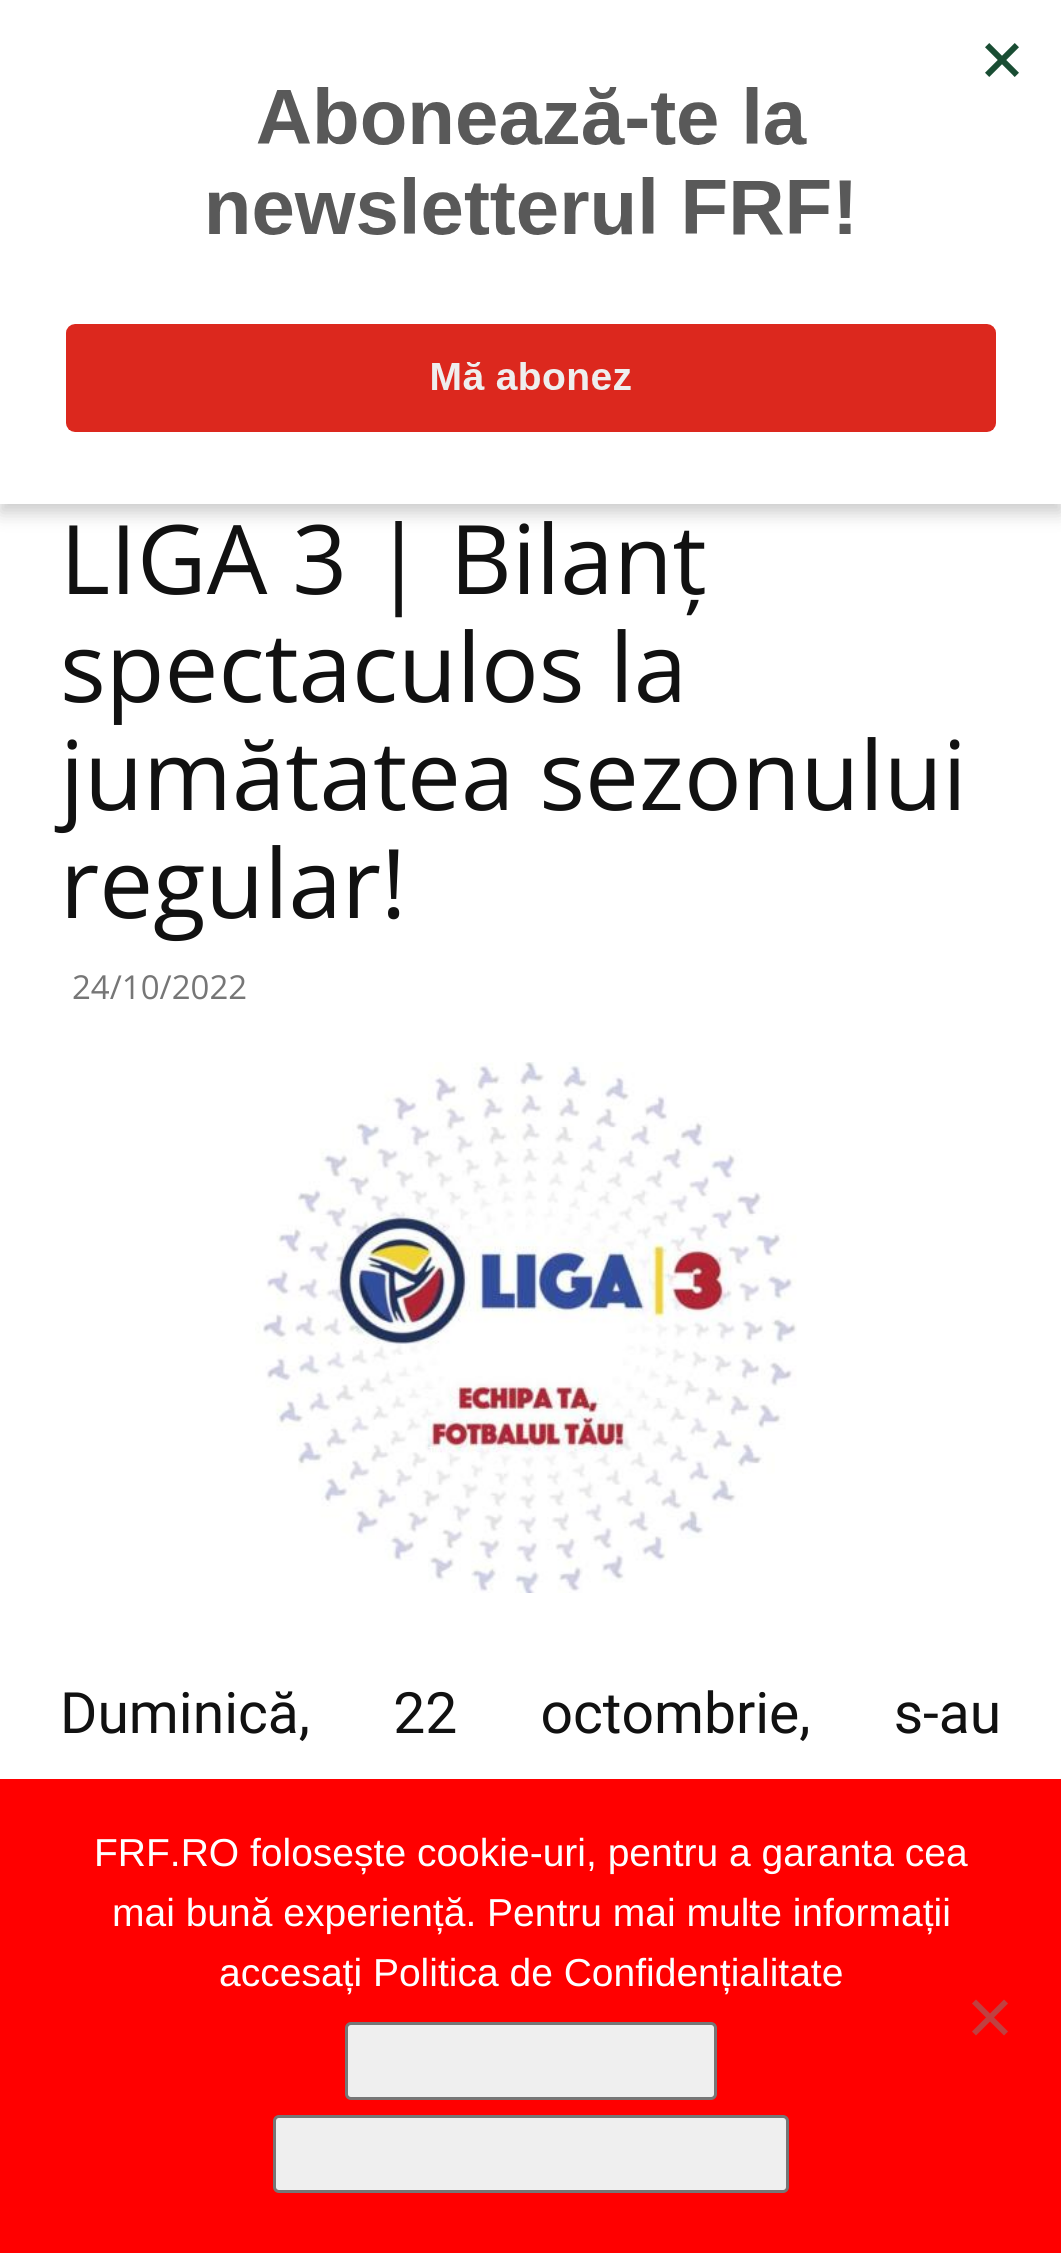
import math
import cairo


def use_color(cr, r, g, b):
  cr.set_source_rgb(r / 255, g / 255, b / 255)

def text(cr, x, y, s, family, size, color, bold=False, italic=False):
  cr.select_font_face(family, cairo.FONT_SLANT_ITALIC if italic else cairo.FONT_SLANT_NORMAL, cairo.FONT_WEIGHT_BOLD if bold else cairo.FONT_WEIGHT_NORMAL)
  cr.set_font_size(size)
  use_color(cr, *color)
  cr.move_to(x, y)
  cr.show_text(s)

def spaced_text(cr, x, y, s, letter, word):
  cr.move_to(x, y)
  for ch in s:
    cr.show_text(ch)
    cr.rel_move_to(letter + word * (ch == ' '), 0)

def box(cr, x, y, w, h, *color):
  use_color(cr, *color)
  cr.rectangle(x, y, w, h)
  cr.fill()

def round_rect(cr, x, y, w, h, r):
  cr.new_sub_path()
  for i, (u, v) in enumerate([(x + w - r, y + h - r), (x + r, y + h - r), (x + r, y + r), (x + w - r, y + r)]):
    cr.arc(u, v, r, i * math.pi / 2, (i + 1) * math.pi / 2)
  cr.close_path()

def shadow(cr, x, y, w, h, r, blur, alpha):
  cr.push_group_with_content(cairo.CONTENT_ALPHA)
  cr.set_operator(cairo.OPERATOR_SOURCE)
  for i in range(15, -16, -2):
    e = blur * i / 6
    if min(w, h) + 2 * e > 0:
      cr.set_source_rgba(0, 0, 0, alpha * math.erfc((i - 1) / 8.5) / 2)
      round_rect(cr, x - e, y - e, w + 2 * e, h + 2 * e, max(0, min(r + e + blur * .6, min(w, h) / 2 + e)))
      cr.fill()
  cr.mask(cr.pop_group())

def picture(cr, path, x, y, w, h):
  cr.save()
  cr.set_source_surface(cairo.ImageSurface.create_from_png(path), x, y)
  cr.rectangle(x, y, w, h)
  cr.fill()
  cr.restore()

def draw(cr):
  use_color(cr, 255, 255, 255)
  cr.paint()
  use_color(cr, 0, 0, 0)
  shadow(cr, 0, 9, 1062, 504, 0, 9, 0.2)
  box(cr, 0, 0, 1061, 504, 255, 255, 255)
  picture(cr, "img_01.png", 66, 43, 953, 389)
  picture(cr, "img_02.png", 255, 1062, 542, 531)
  box(cr, 0, 1779, 1061, 474, 255, 0, 0)
  use_color(cr, 192, 64, 64)
  cr.new_path()
  cr.move_to(1004, 1999.5)
  cr.line_to(1008, 2003.5)
  cr.line_to(976, 2035.5)
  cr.line_to(972, 2031.5)
  cr.close_path()
  cr.fill()
  cr.new_path()
  cr.move_to(972, 2003.5)
  cr.line_to(976, 1999.5)
  cr.line_to(1008, 2031.5)
  cr.line_to(1004, 2035.5)
  cr.close_path()
  cr.fill()
  use_color(cr, 239, 239, 239)
  round_rect(cr, 346.5, 2023.5, 369, 75, 4.5)
  cr.fill_preserve()
  use_color(cr, 118, 118, 118)
  cr.set_line_width(3)
  cr.stroke()
  use_color(cr, 239, 239, 239)
  round_rect(cr, 274.5, 2116.5, 513, 75, 4.5)
  cr.fill_preserve()
  use_color(cr, 118, 118, 118)
  cr.stroke()
  text(cr, 60, 594, "LIGA 3 | Bilanț", "Open Sans", 96, (17, 17, 17))
  text(cr, 60, 702, "spectaculos la", "Open Sans", 96, (17, 17, 17))
  text(cr, 60, 810, "jumătatea sezonului", "Open Sans", 96, (17, 17, 17))
  text(cr, 60, 918, "regular!", "Open Sans", 96, (17, 17, 17))
  text(cr, 72, 999, "24/10/2022", "Open Sans", 33, (118, 118, 118))
  cr.select_font_face("Roboto")
  cr.set_font_size(57)
  use_color(cr, 17, 17, 17)
  spaced_text(cr, 60, 1733, "Duminică, 22 octombrie, s-au", 0, 69)
  text(cr, 94, 1866, "FRF.RO folosește cookie-uri, pentru a garanta cea", "Liberation Sans", 39, (255, 255, 255))
  text(cr, 112, 1926, "mai bună experiență. Pentru mai multe informații", "Liberation Sans", 39, (255, 255, 255))
  text(cr, 219, 1986, "accesați Politica de Confidențialitate", "Liberation Sans", 39, (255, 255, 255))


surface = cairo.ImageSurface(cairo.FORMAT_RGB24, 1061, 2253)
cr = cairo.Context(surface)
options = cairo.FontOptions()
options.set_hint_metrics(cairo.HINT_METRICS_OFF)
options.set_hint_style(cairo.HINT_STYLE_NONE)
cr.set_font_options(options)
cr.set_miter_limit(4)
draw(cr)
surface.write_to_png("out.png")
